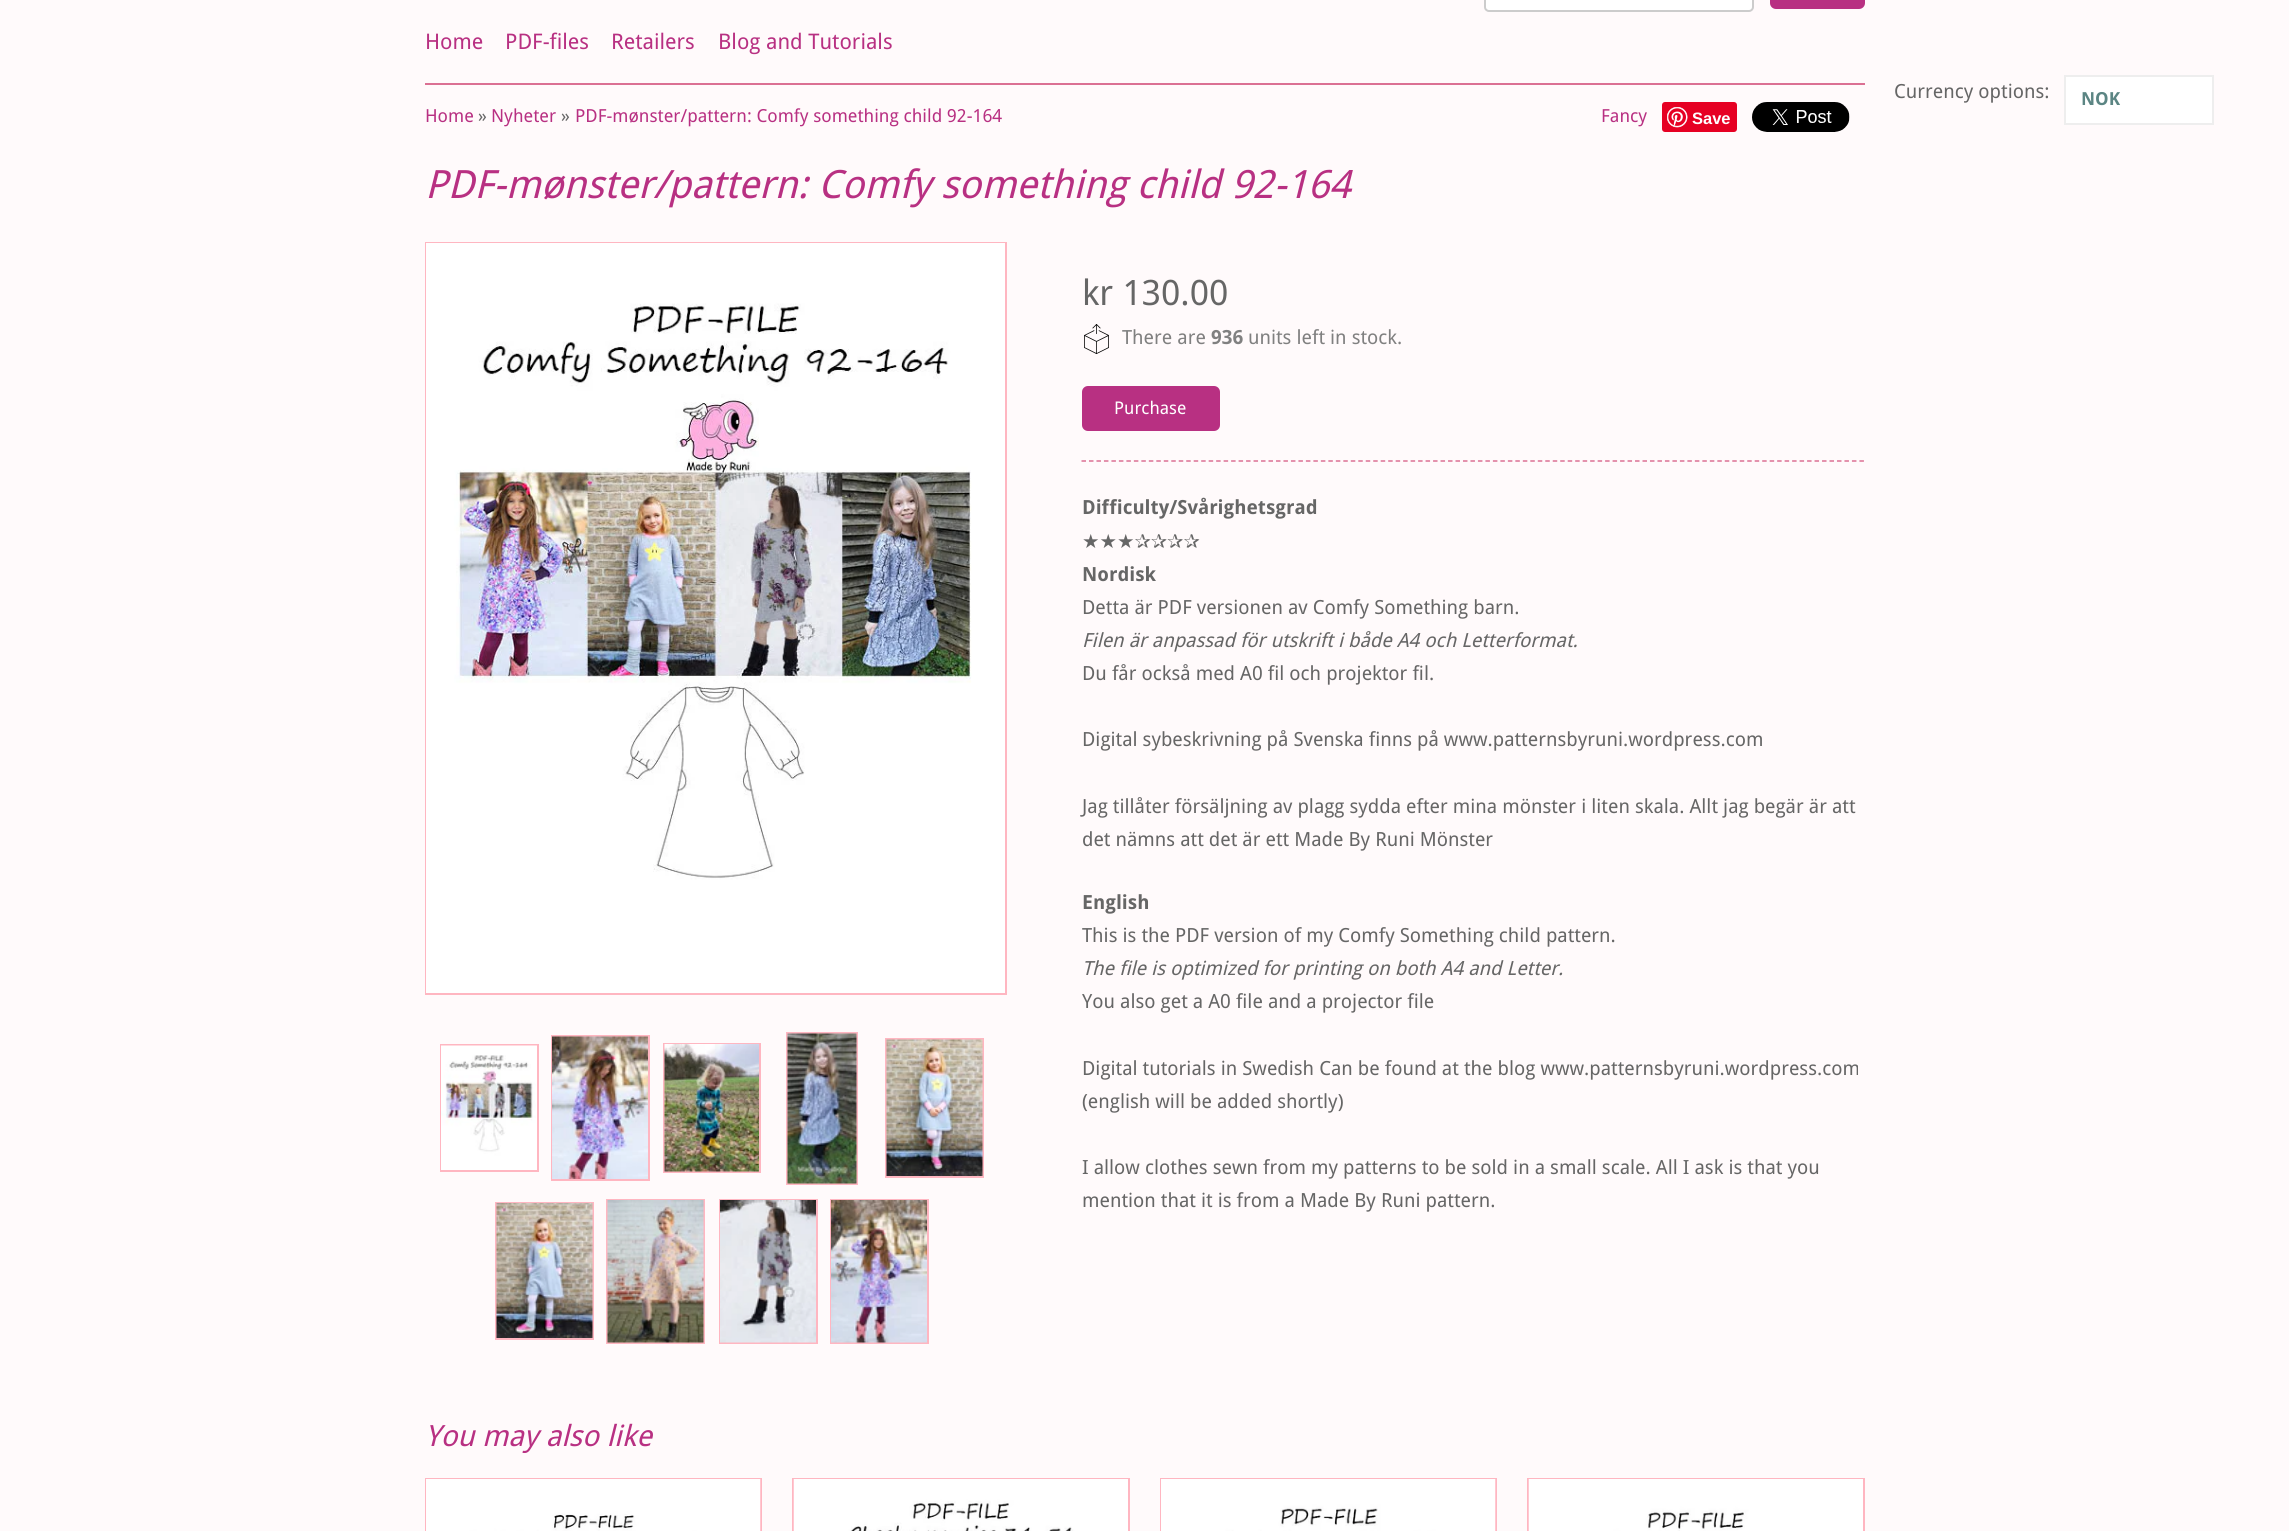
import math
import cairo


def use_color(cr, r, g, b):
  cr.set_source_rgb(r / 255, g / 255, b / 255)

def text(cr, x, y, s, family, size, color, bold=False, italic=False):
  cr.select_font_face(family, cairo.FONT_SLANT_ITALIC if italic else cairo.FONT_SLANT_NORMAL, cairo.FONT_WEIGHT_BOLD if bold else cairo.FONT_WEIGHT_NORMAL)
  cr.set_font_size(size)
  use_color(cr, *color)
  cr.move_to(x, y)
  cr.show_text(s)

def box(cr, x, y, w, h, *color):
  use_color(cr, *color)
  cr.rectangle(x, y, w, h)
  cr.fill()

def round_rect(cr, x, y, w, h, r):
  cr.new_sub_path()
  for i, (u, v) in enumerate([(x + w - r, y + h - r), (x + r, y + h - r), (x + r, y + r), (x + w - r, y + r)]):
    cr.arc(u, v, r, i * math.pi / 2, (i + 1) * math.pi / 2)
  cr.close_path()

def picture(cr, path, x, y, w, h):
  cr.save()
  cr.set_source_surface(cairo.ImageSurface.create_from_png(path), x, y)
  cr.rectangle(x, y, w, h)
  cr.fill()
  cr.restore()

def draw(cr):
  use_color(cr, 255, 250, 251)
  cr.paint()
  use_color(cr, 255, 255, 255)
  round_rect(cr, 1485, -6, 268, 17, 4)
  cr.fill_preserve()
  use_color(cr, 204, 204, 204)
  cr.stroke()
  use_color(cr, 184, 48, 130)
  round_rect(cr, 1770, -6, 95, 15, 6)
  cr.fill()
  box(cr, 425, 83, 1440, 2, 219, 112, 147)
  use_color(cr, 230, 0, 35)
  round_rect(cr, 1662, 102, 75, 30, 3)
  cr.fill()
  picture(cr, "img_01.png", 1667, 107, 21, 21)
  picture(cr, "img_02.png", 1752, 102, 98, 30)
  cr.rectangle(426, 243, 580, 751)
  use_color(cr, 255, 182, 193)
  cr.stroke()
  picture(cr, "img_03.png", 426, 243, 579, 750)
  cr.rectangle(441, 1045, 97, 126)
  cr.stroke()
  picture(cr, "img_04.png", 441, 1045, 96, 125)
  cr.rectangle(552, 1036, 97, 144)
  cr.stroke()
  picture(cr, "img_05.png", 552, 1036, 96, 143)
  cr.rectangle(664, 1044, 96, 128)
  cr.stroke()
  picture(cr, "img_06.png", 664, 1044, 95, 128)
  cr.rectangle(787, 1033, 70, 151)
  cr.stroke()
  picture(cr, "img_07.png", 787, 1033, 70, 151)
  cr.rectangle(886, 1039, 97, 138)
  cr.stroke()
  picture(cr, "img_08.png", 886, 1039, 97, 137)
  cr.rectangle(496, 1203, 97, 136)
  cr.stroke()
  picture(cr, "img_09.png", 496, 1203, 97, 135)
  cr.rectangle(607, 1200, 97, 143)
  cr.stroke()
  picture(cr, "img_10.png", 607, 1200, 97, 143)
  cr.rectangle(720, 1200, 97, 143)
  cr.stroke()
  picture(cr, "img_11.png", 720, 1200, 96, 143)
  cr.rectangle(831, 1200, 97, 143)
  cr.stroke()
  picture(cr, "img_12.png", 831, 1200, 96, 143)
  picture(cr, "img_13.png", 1084, 324, 25, 30)
  use_color(cr, 184, 48, 130)
  round_rect(cr, 1082, 386, 138, 45, 6)
  cr.fill()
  cr.new_path()
  cr.move_to(1081.5, 461)
  cr.line_to(1864.5, 461)
  use_color(cr, 219, 112, 147)
  cr.set_line_width(1.5)
  cr.set_dash([4.5, 2.98])
  cr.stroke()
  cr.rectangle(426, 1479, 335, 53)
  use_color(cr, 255, 182, 193)
  cr.set_line_width(2)
  cr.set_dash([])
  cr.stroke()
  picture(cr, "img_14.png", 426, 1479, 335, 52)
  cr.rectangle(793, 1479, 336, 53)
  cr.stroke()
  picture(cr, "img_15.png", 793, 1479, 335, 52)
  cr.rectangle(1161, 1479, 335, 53)
  cr.stroke()
  picture(cr, "img_16.png", 1161, 1479, 335, 52)
  cr.rectangle(1528, 1479, 336, 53)
  cr.stroke()
  picture(cr, "img_17.png", 1528, 1479, 335, 52)
  use_color(cr, 255, 255, 255)
  cr.rectangle(2065, 76, 148, 48)
  cr.fill_preserve()
  use_color(cr, 238, 238, 238)
  cr.stroke()
  text(cr, 425, 49, "Home", "Droid Sans", 21.5, (184, 48, 130))
  text(cr, 505, 49, "PDF-files", "Droid Sans", 21.5, (184, 48, 130))
  text(cr, 611, 49, "Retailers", "Droid Sans", 21.5, (184, 48, 130))
  text(cr, 718, 49, "Blog and Tutorials", "Droid Sans", 21.5, (184, 48, 130))
  text(cr, 1894, 98, "Currency options:", "Droid Sans", 19.5, (102, 102, 102))
  text(cr, 425, 122, "Home", "Droid Sans", 18, (184, 48, 130))
  text(cr, 478, 122, "»", "Droid Sans", 18, (102, 102, 102))
  text(cr, 491, 122, "Nyheter", "Droid Sans", 18, (184, 48, 130))
  text(cr, 561, 122, "»", "Droid Sans", 18, (102, 102, 102))
  text(cr, 575, 122, "PDF-mønster/pattern: Comfy something child 92-164", "Droid Sans", 18, (184, 48, 130))
  text(cr, 1601, 122, "Fancy", "Droid Sans", 18, (184, 48, 130))
  text(cr, 1692, 124, "Save", "Liberation Sans", 16.5, (255, 255, 255), bold=True)
  text(cr, 425, 198, "PDF-mønster/pattern: Comfy something child 92-164", "Droid Sans", 39, (184, 48, 130), italic=True)
  text(cr, 1082, 305, "kr 130.00", "Droid Sans", 35, (102, 102, 102))
  text(cr, 1122, 344, "There are", "Droid Sans", 19.5, (128, 128, 128))
  text(cr, 1211, 344, "936", "Droid Sans", 19.5, (128, 128, 128), bold=True)
  text(cr, 1248, 344, "units left in stock.", "Droid Sans", 19.5, (128, 128, 128))
  text(cr, 1114, 414, "Purchase", "Droid Sans", 17.5, (255, 255, 255))
  text(cr, 1082, 514, "Difficulty/Svårighetsgrad", "Droid Sans", 19.5, (102, 102, 102), bold=True)
  text(cr, 1082, 548, "★★★✰✰✰✰", "DejaVu Sans", 19.5, (102, 102, 102))
  text(cr, 1082, 581, "Nordisk", "Droid Sans", 19.5, (102, 102, 102), bold=True)
  text(cr, 1082, 614, "Detta är PDF versionen av Comfy Something barn.", "Droid Sans", 19.5, (102, 102, 102))
  text(cr, 1082, 647, "Filen är anpassad för utskrift i både A4 och Letterformat.", "Droid Sans", 19.5, (102, 102, 102), italic=True)
  text(cr, 1082, 680, "Du får också med A0 fil och projektor fil.", "Droid Sans", 19.5, (102, 102, 102))
  text(cr, 1082, 746, "Digital sybeskrivning på Svenska finns på www.patternsbyruni.wordpress.com", "Droid Sans", 19.5, (102, 102, 102))
  text(cr, 1082, 813, "Jag tillåter försäljning av plagg sydda efter mina mönster i liten skala. Allt jag begär är att", "Droid Sans", 19.5, (102, 102, 102))
  text(cr, 1082, 846, "det nämns att det är ett Made By Runi Mönster", "Droid Sans", 19.5, (102, 102, 102))
  text(cr, 1082, 909, "English", "Droid Sans", 19.5, (102, 102, 102), bold=True)
  text(cr, 1082, 942, "This is the PDF version of my Comfy Something child pattern.", "Droid Sans", 19.5, (102, 102, 102))
  text(cr, 1082, 975, "The file is optimized for printing on both A4 and Letter.", "Droid Sans", 19.5, (102, 102, 102), italic=True)
  text(cr, 1082, 1008, "You also get a A0 file and a projector file", "Droid Sans", 19.5, (102, 102, 102))
  text(cr, 1082, 1075, "Digital tutorials in Swedish Can be found at the blog www.patternsbyruni.wordpress.com", "Droid Sans", 19.5, (102, 102, 102))
  text(cr, 1082, 1108, "(english will be added shortly)", "Droid Sans", 19.5, (102, 102, 102))
  text(cr, 1082, 1174, "I allow clothes sewn from my patterns to be sold in a small scale. All I ask is that you", "Droid Sans", 19.5, (102, 102, 102))
  text(cr, 1082, 1207, "mention that it is from a Made By Runi pattern.", "Droid Sans", 19.5, (102, 102, 102))
  text(cr, 425, 1446, "You may also like", "Droid Sans", 29.25, (184, 48, 130), italic=True)
  text(cr, 2081, 105, "NOK", "Droid Sans", 18, (91, 133, 131), bold=True)


surface = cairo.ImageSurface(cairo.FORMAT_RGB24, 2289, 1531)
cr = cairo.Context(surface)
options = cairo.FontOptions()
options.set_hint_metrics(cairo.HINT_METRICS_OFF)
options.set_hint_style(cairo.HINT_STYLE_NONE)
cr.set_font_options(options)
cr.set_miter_limit(4)
draw(cr)
surface.write_to_png("out.png")
